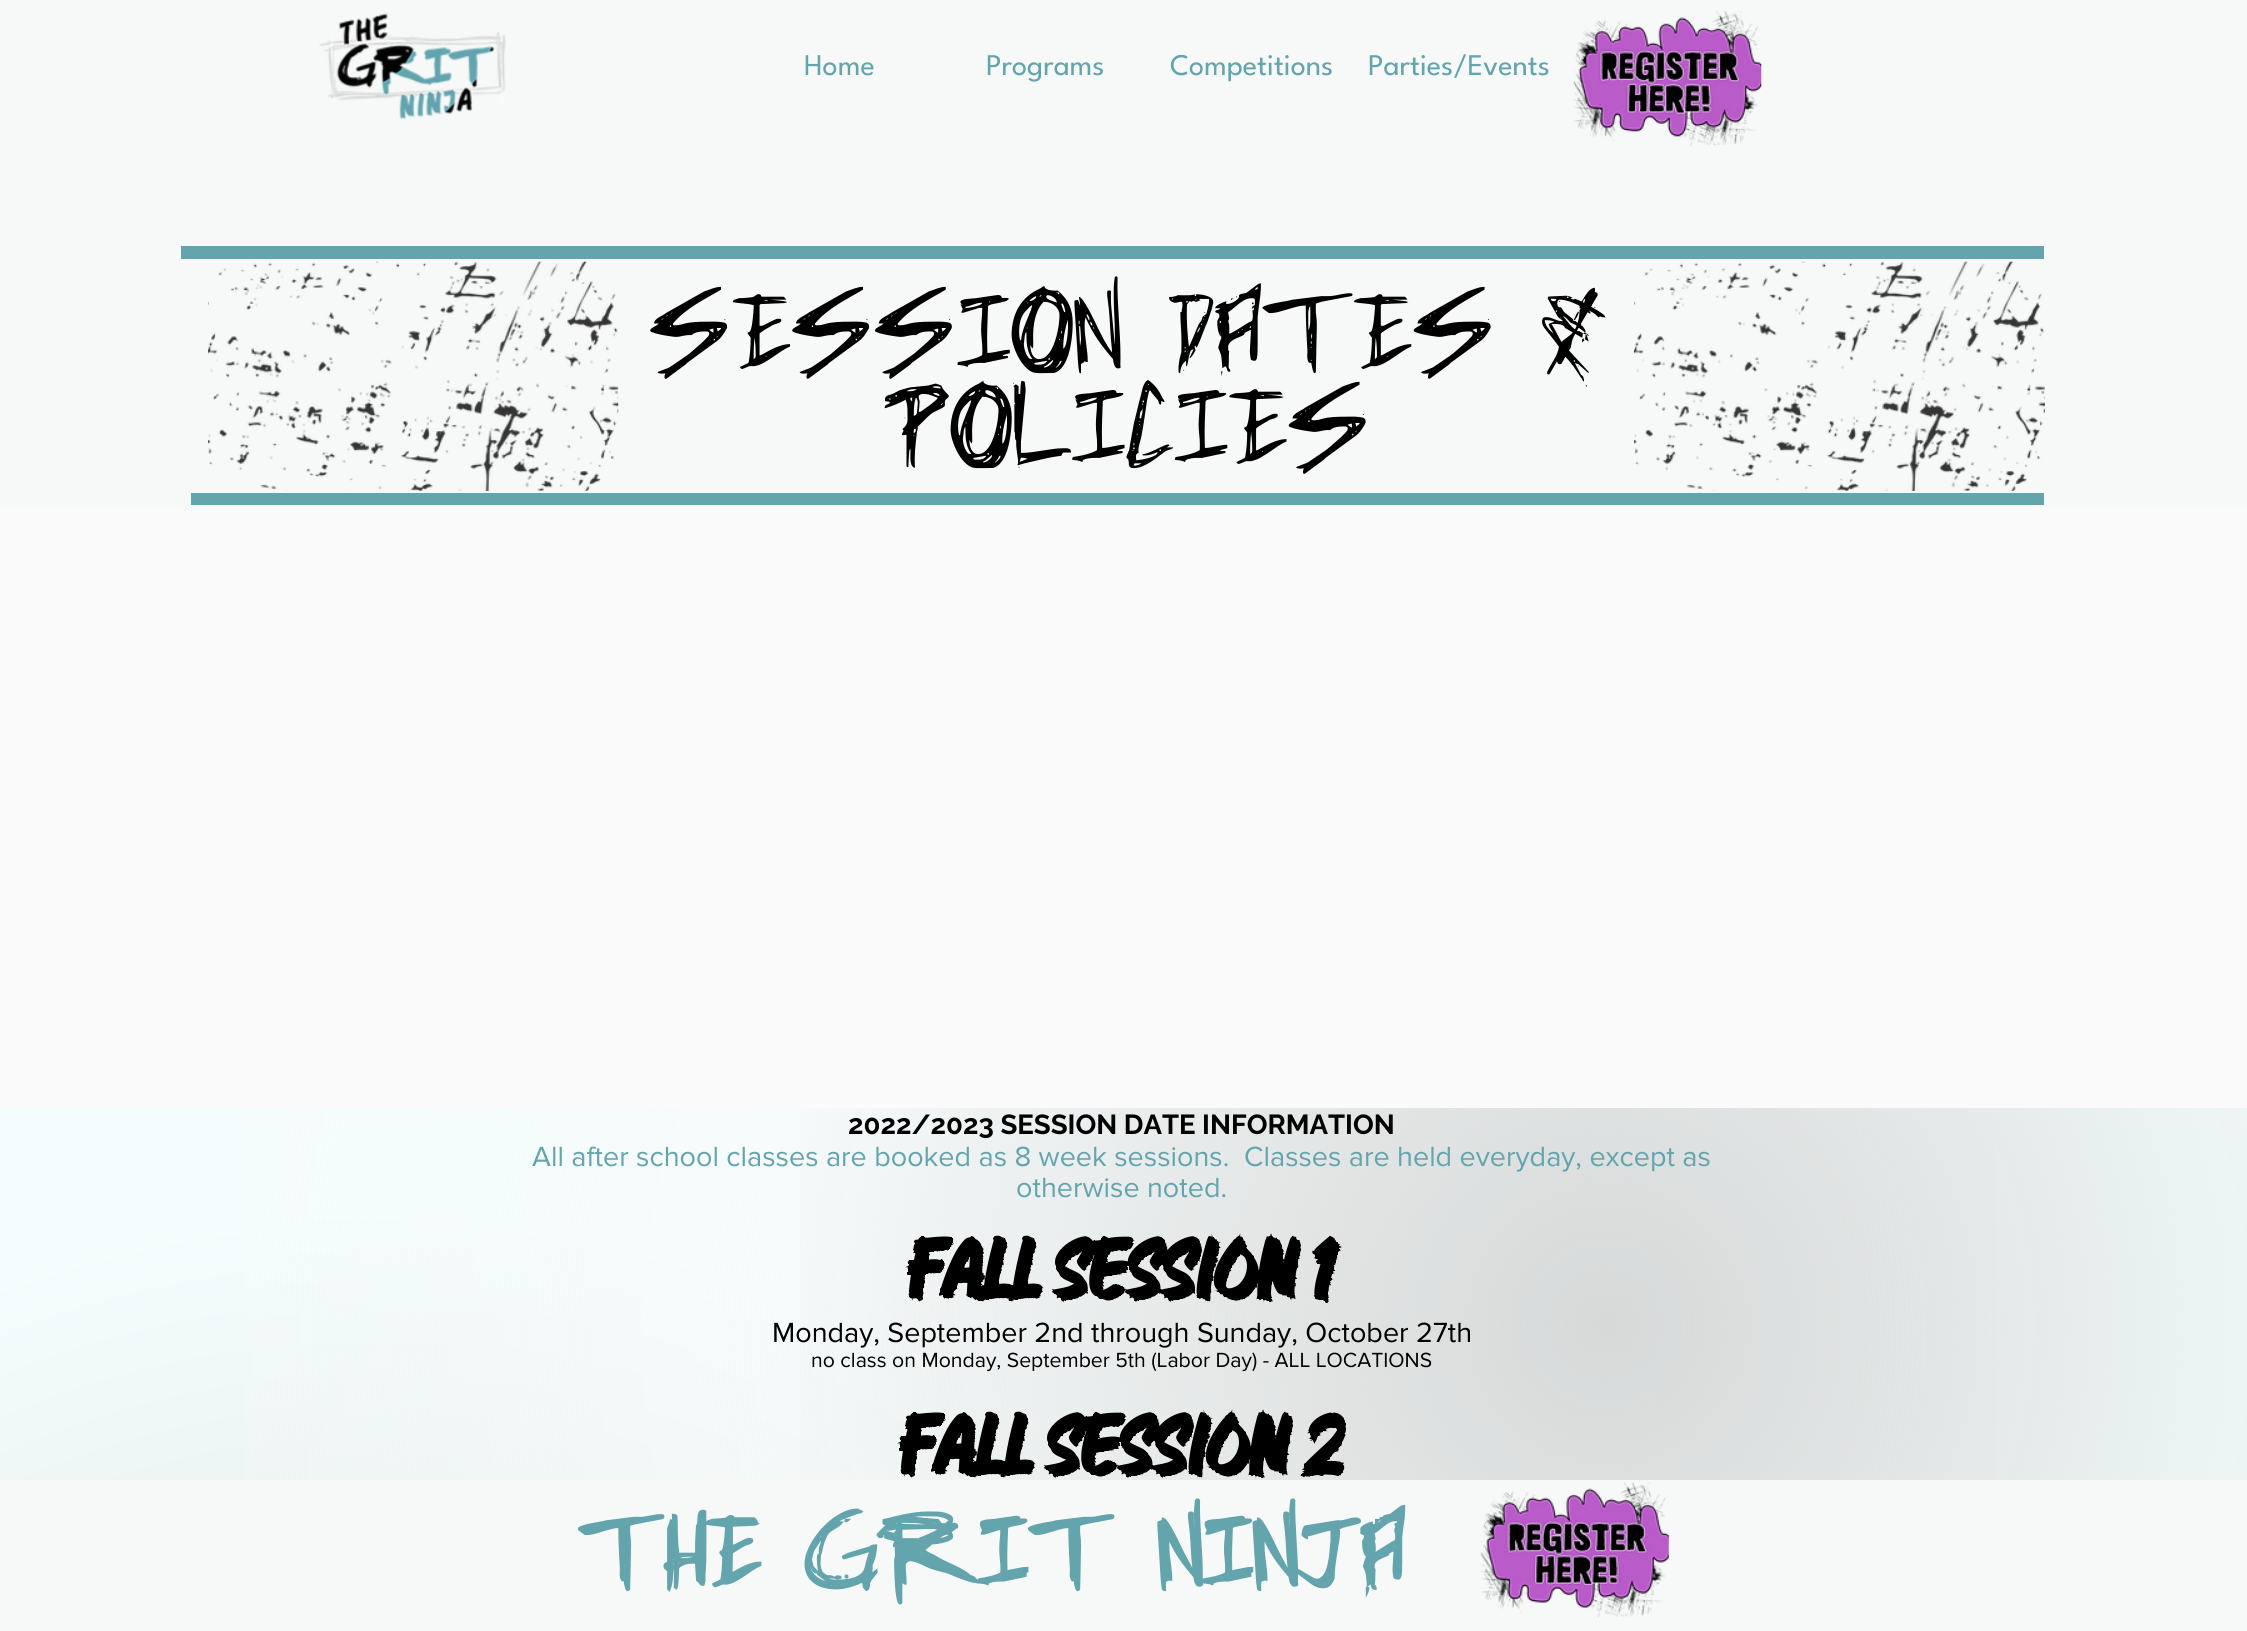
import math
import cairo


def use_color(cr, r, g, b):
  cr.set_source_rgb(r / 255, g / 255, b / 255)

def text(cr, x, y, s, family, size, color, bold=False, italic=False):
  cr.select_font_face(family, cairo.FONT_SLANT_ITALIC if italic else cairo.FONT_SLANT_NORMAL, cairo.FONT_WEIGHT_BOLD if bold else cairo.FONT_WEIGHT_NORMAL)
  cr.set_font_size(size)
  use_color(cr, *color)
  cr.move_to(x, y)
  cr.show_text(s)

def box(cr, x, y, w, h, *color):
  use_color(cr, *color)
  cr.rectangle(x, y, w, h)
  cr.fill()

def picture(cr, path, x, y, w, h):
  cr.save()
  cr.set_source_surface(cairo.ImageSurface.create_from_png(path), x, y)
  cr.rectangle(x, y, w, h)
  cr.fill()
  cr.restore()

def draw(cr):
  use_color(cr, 247, 249, 249)
  cr.paint()
  picture(cr, "img_01.png", 319, 13, 187, 107)
  picture(cr, "img_02.png", 1573, 11, 189, 136)
  box(cr, 181, 246, 1863, 13, 99, 164, 173)
  picture(cr, "img_03.png", 208, 261, 411, 230)
  picture(cr, "img_04.png", 1634, 261, 411, 230)
  box(cr, 191, 493, 1853, 12, 99, 164, 173)
  box(cr, 0, 508, 2247, 600, 250, 250, 250)
  gradient = cairo.RadialGradient(382, 2316, 0, 382, 2316, 2223)
  gradient.add_color_stop_rgba(0, 0.843, 0.851, 0.851, 1)
  gradient.add_color_stop_rgba(0.5, 0.957, 0.992, 0.992, 1)
  cr.set_source(gradient)
  cr.rectangle(0, 1108, 2247, 372)
  cr.fill()
  gradient = cairo.RadialGradient(1322, 1336, 0, 1322, 1336, 2268)
  gradient.add_color_stop_rgba(0, 0.969, 0.976, 0.976, 1)
  gradient.add_color_stop_rgba(0.6, 0.969, 0.976, 0.976, 0)
  cr.set_source(gradient)
  cr.rectangle(245, 1108, 1749, 372)
  cr.fill()
  gradient = cairo.RadialGradient(1606, 1324, 0, 1606, 1324, 2453)
  gradient.add_color_stop_rgba(0, 0.843, 0.851, 0.851, 1)
  gradient.add_color_stop_rgba(0.35, 0.843, 0.851, 0.851, 0)
  cr.set_source(gradient)
  cr.rectangle(800, 1108, 1447, 372)
  cr.fill()
  picture(cr, "img_05.png", 1481, 1482, 188, 136)
  text(cr, 804, 75, "Home", "League Spartan", 30, (99, 164, 173))
  text(cr, 986, 75, "Programs", "League Spartan", 30, (99, 164, 173))
  text(cr, 1170, 75, "Competitions", "League Spartan", 30, (99, 164, 173))
  text(cr, 1368, 75, "Parties/Events", "League Spartan", 30, (99, 164, 173))
  text(cr, 649, 373, "SESSION DATES &", "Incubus", 93.75, (0, 0, 0))
  text(cr, 884, 468, "POLICIES", "Incubus", 93.75, (0, 0, 0))
  text(cr, 848, 1134, "2022/2023 SESSION DATE INFORMATION", "Raleway", 27.5, (0, 0, 0), bold=True)
  text(cr, 532, 1166, "All after school classes are booked as 8 week sessions.  Classes are held everyday, except as", "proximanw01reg", 28.75, (99, 164, 173))
  text(cr, 1016, 1197, "otherwise noted.", "proximanw01reg", 28.75, (99, 164, 173))
  text(cr, 907, 1298, "Fall Session 1", "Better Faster", 75, (0, 0, 0), bold=True)
  text(cr, 772, 1342, "Monday, September 2nd through Sunday, October 27th", "proximanw01reg", 28.75, (0, 0, 0))
  text(cr, 811, 1367, "no class on Monday, September 5th (Labor Day) - ALL LOCATIONS", "proximanw01reg", 21.25, (0, 0, 0))
  text(cr, 899, 1474, "Fall Session 2", "Better Faster", 75, (0, 0, 0), bold=True)
  box(cr, 972, 1480, 6, 2, 247, 249, 249)
  text(cr, 577, 1591, "The Grit Ninja", "Incubus", 87.5, (99, 164, 173), bold=True)


surface = cairo.ImageSurface(cairo.FORMAT_RGB24, 2247, 1631)
cr = cairo.Context(surface)
options = cairo.FontOptions()
options.set_hint_metrics(cairo.HINT_METRICS_OFF)
options.set_hint_style(cairo.HINT_STYLE_NONE)
cr.set_font_options(options)
cr.set_miter_limit(4)
draw(cr)
surface.write_to_png("out.png")
